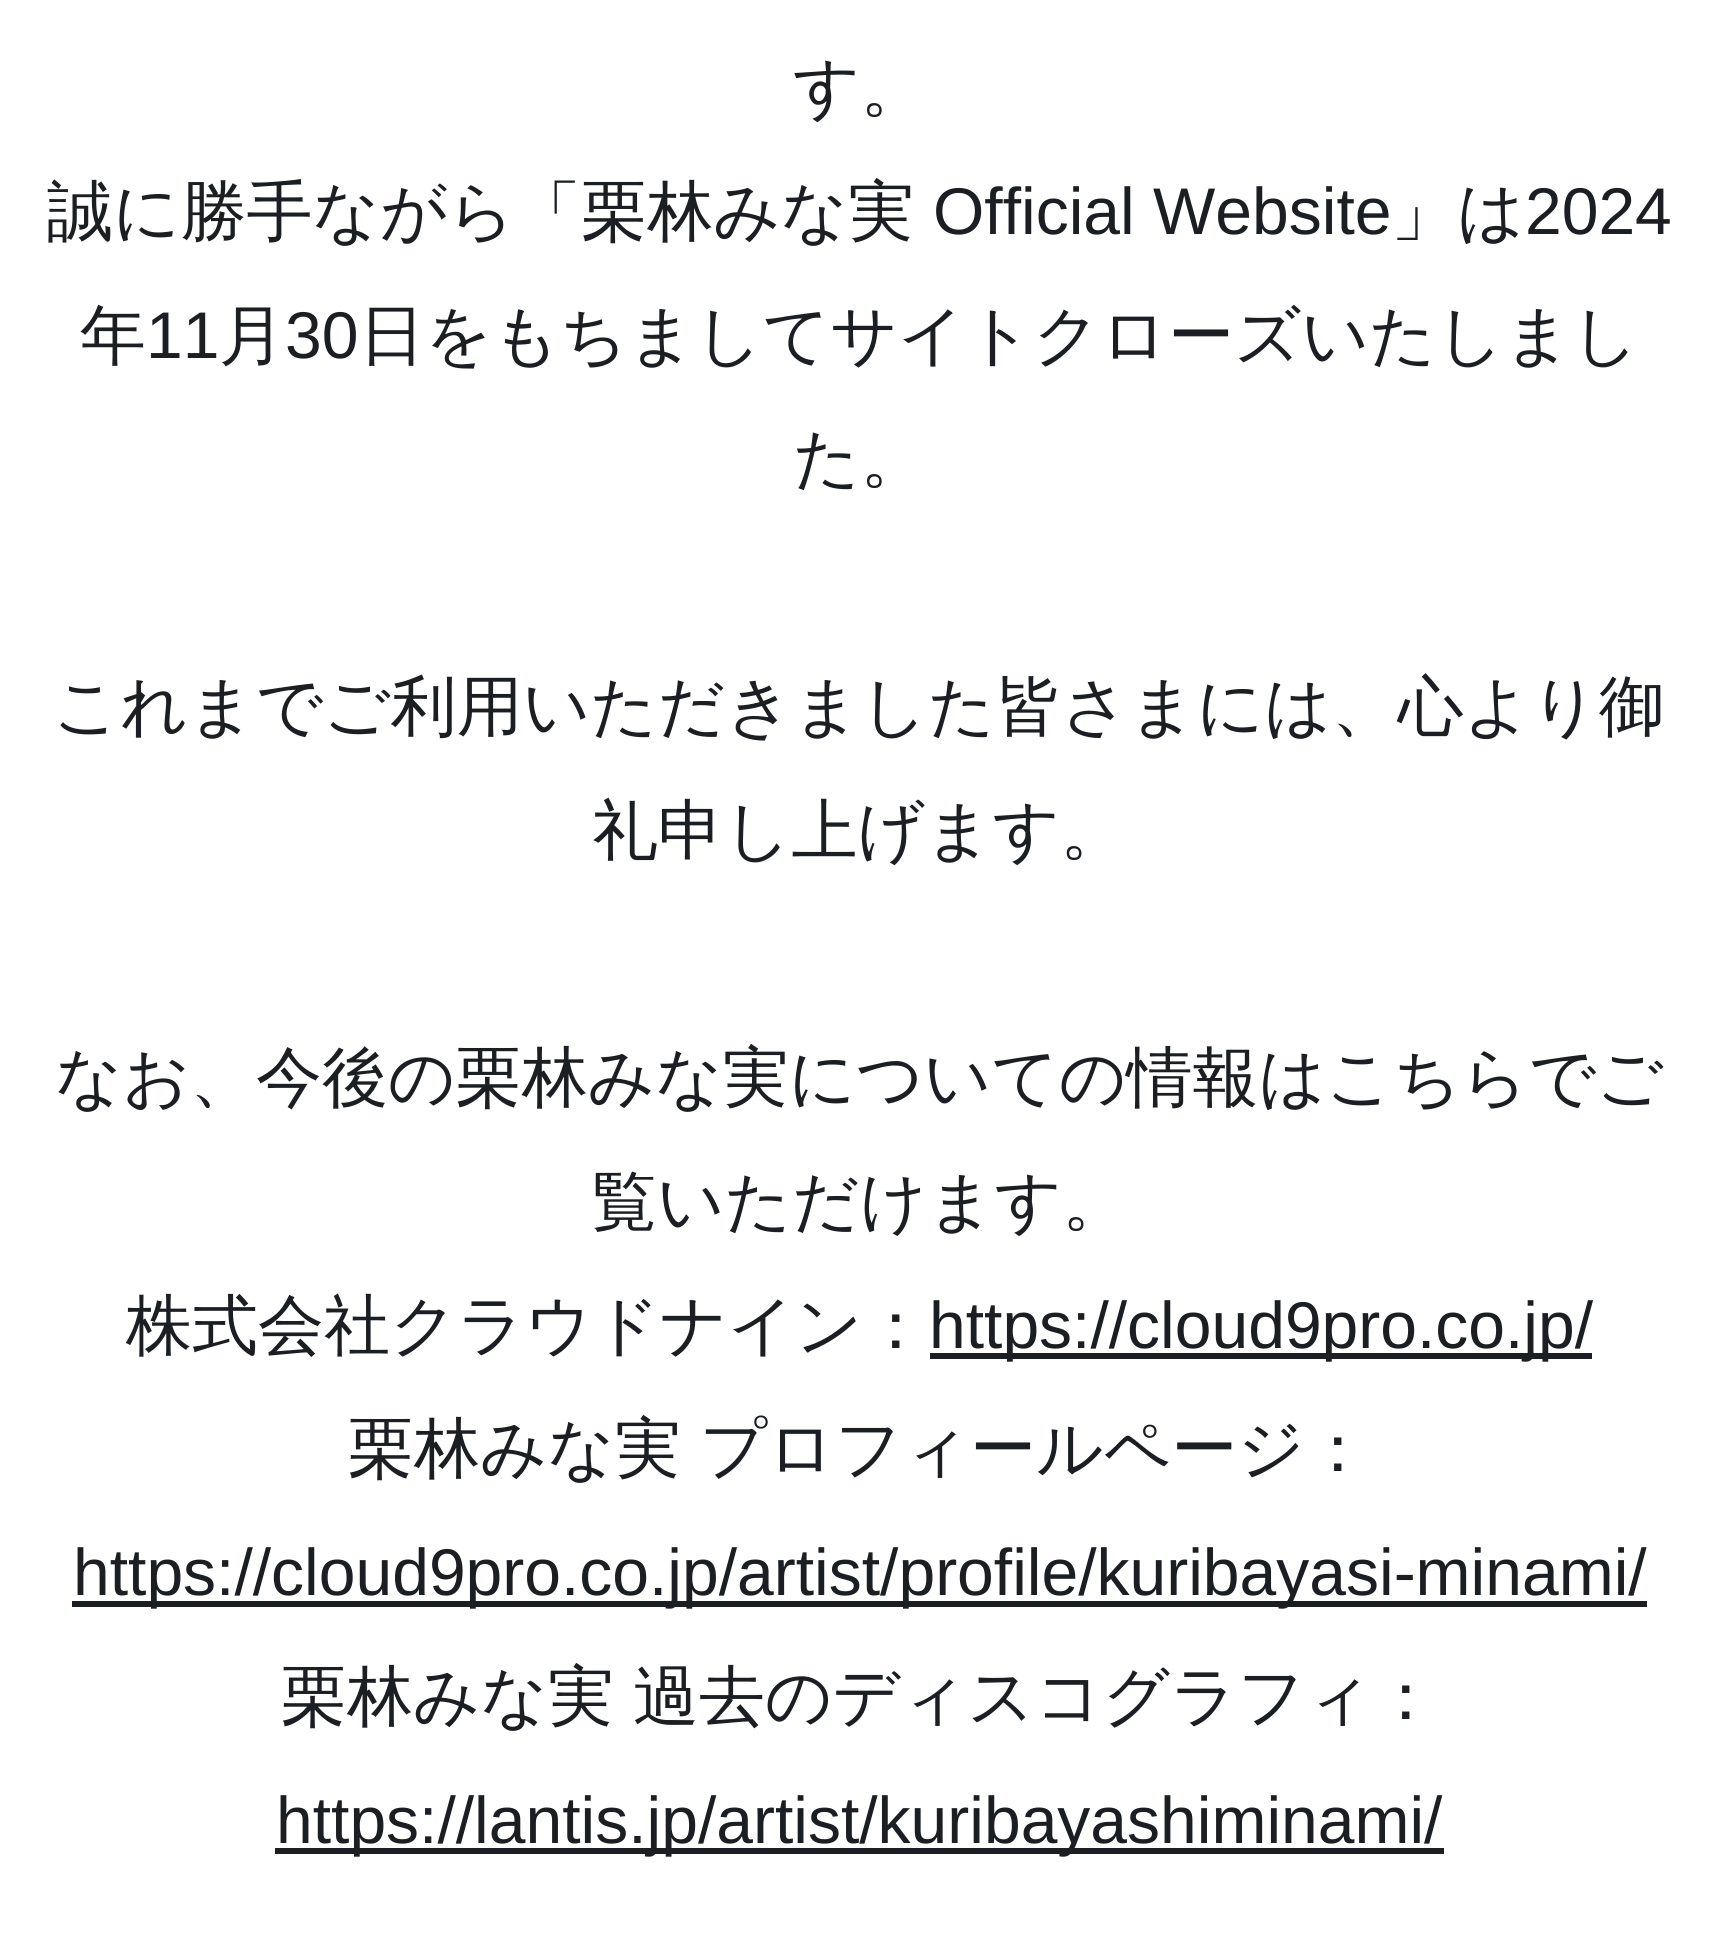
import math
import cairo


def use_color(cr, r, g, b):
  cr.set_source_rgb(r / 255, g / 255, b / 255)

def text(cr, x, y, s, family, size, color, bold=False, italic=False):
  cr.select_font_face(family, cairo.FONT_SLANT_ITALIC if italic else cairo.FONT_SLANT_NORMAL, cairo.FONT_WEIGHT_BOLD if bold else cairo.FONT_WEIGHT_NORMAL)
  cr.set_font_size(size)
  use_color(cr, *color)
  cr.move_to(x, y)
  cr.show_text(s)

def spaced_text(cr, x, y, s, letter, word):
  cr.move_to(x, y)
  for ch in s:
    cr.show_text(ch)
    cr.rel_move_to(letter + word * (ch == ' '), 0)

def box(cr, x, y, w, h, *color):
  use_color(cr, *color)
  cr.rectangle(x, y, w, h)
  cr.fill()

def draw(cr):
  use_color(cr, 255, 255, 255)
  cr.paint()
  box(cr, 930, 1353, 662, 6, 27, 31, 35)
  box(cr, 72, 1601, 1575, 6, 27, 31, 35)
  box(cr, 275, 1848, 1169, 6, 27, 31, 35)
  text(cr, 793, 110, "す。", "WenQuanYi Zen Hei Medium", 66, (27, 31, 35))
  text(cr, 47, 234, "誠に勝手ながら「栗林みな実", "WenQuanYi Zen Hei Medium", 66, (27, 31, 35))
  text(cr, 933, 234, "Official Website", "Liberation Sans", 66, (27, 31, 35))
  text(cr, 1391, 234, "」は", "WenQuanYi Zen Hei Medium", 66, (27, 31, 35))
  text(cr, 1525, 234, "2024", "Liberation Sans", 66, (27, 31, 35))
  text(cr, 80, 358, "年", "WenQuanYi Zen Hei Medium", 66, (27, 31, 35))
  text(cr, 146, 358, "11", "Liberation Sans", 66, (27, 31, 35))
  text(cr, 219, 358, "月", "WenQuanYi Zen Hei Medium", 66, (27, 31, 35))
  text(cr, 285, 358, "30", "Liberation Sans", 66, (27, 31, 35))
  text(cr, 359, 358, "日をもちましてサイトクローズいたしまし", "WenQuanYi Zen Hei Medium", 66, (27, 31, 35))
  text(cr, 793, 481, "た。", "WenQuanYi Zen Hei Medium", 66, (27, 31, 35))
  text(cr, 53, 729, "これまでご利用いただきました皆さまには、心より御", "WenQuanYi Zen Hei Medium", 66, (27, 31, 35))
  text(cr, 592, 853, "礼申し上げます。", "WenQuanYi Zen Hei Medium", 66, (27, 31, 35))
  text(cr, 55, 1100, "なお、今後の栗林みな実についての情報はこちらでご", "WenQuanYi Zen Hei Medium", 66, (27, 31, 35))
  text(cr, 591, 1224, "覧いただけます。", "WenQuanYi Zen Hei Medium", 66, (27, 31, 35))
  text(cr, 126, 1348, "株式会社クラウドナイン：", "WenQuanYi Zen Hei Medium", 66, (27, 31, 35))
  text(cr, 929, 1348, "https://cloud9pro.co.jp/", "Liberation Sans", 66, (27, 31, 35))
  cr.select_font_face("WenQuanYi Zen Hei Medium")
  spaced_text(cr, 348, 1471, "栗林みな実 プロフィールページ：", 0, -1)
  text(cr, 73, 1595, "https://cloud9pro.co.jp/artist/profile/kuribayasi-minami/", "Liberation Sans", 66, (27, 31, 35))
  cr.select_font_face("WenQuanYi Zen Hei Medium")
  spaced_text(cr, 281, 1719, "栗林みな実 過去のディスコグラフィ：", 0, -1)
  text(cr, 276, 1843, "https://lantis.jp/artist/kuribayashiminami/", "Liberation Sans", 66, (27, 31, 35))


surface = cairo.ImageSurface(cairo.FORMAT_RGB24, 1717, 1947)
cr = cairo.Context(surface)
options = cairo.FontOptions()
options.set_hint_metrics(cairo.HINT_METRICS_OFF)
options.set_hint_style(cairo.HINT_STYLE_NONE)
cr.set_font_options(options)
cr.set_miter_limit(4)
draw(cr)
surface.write_to_png("out.png")
